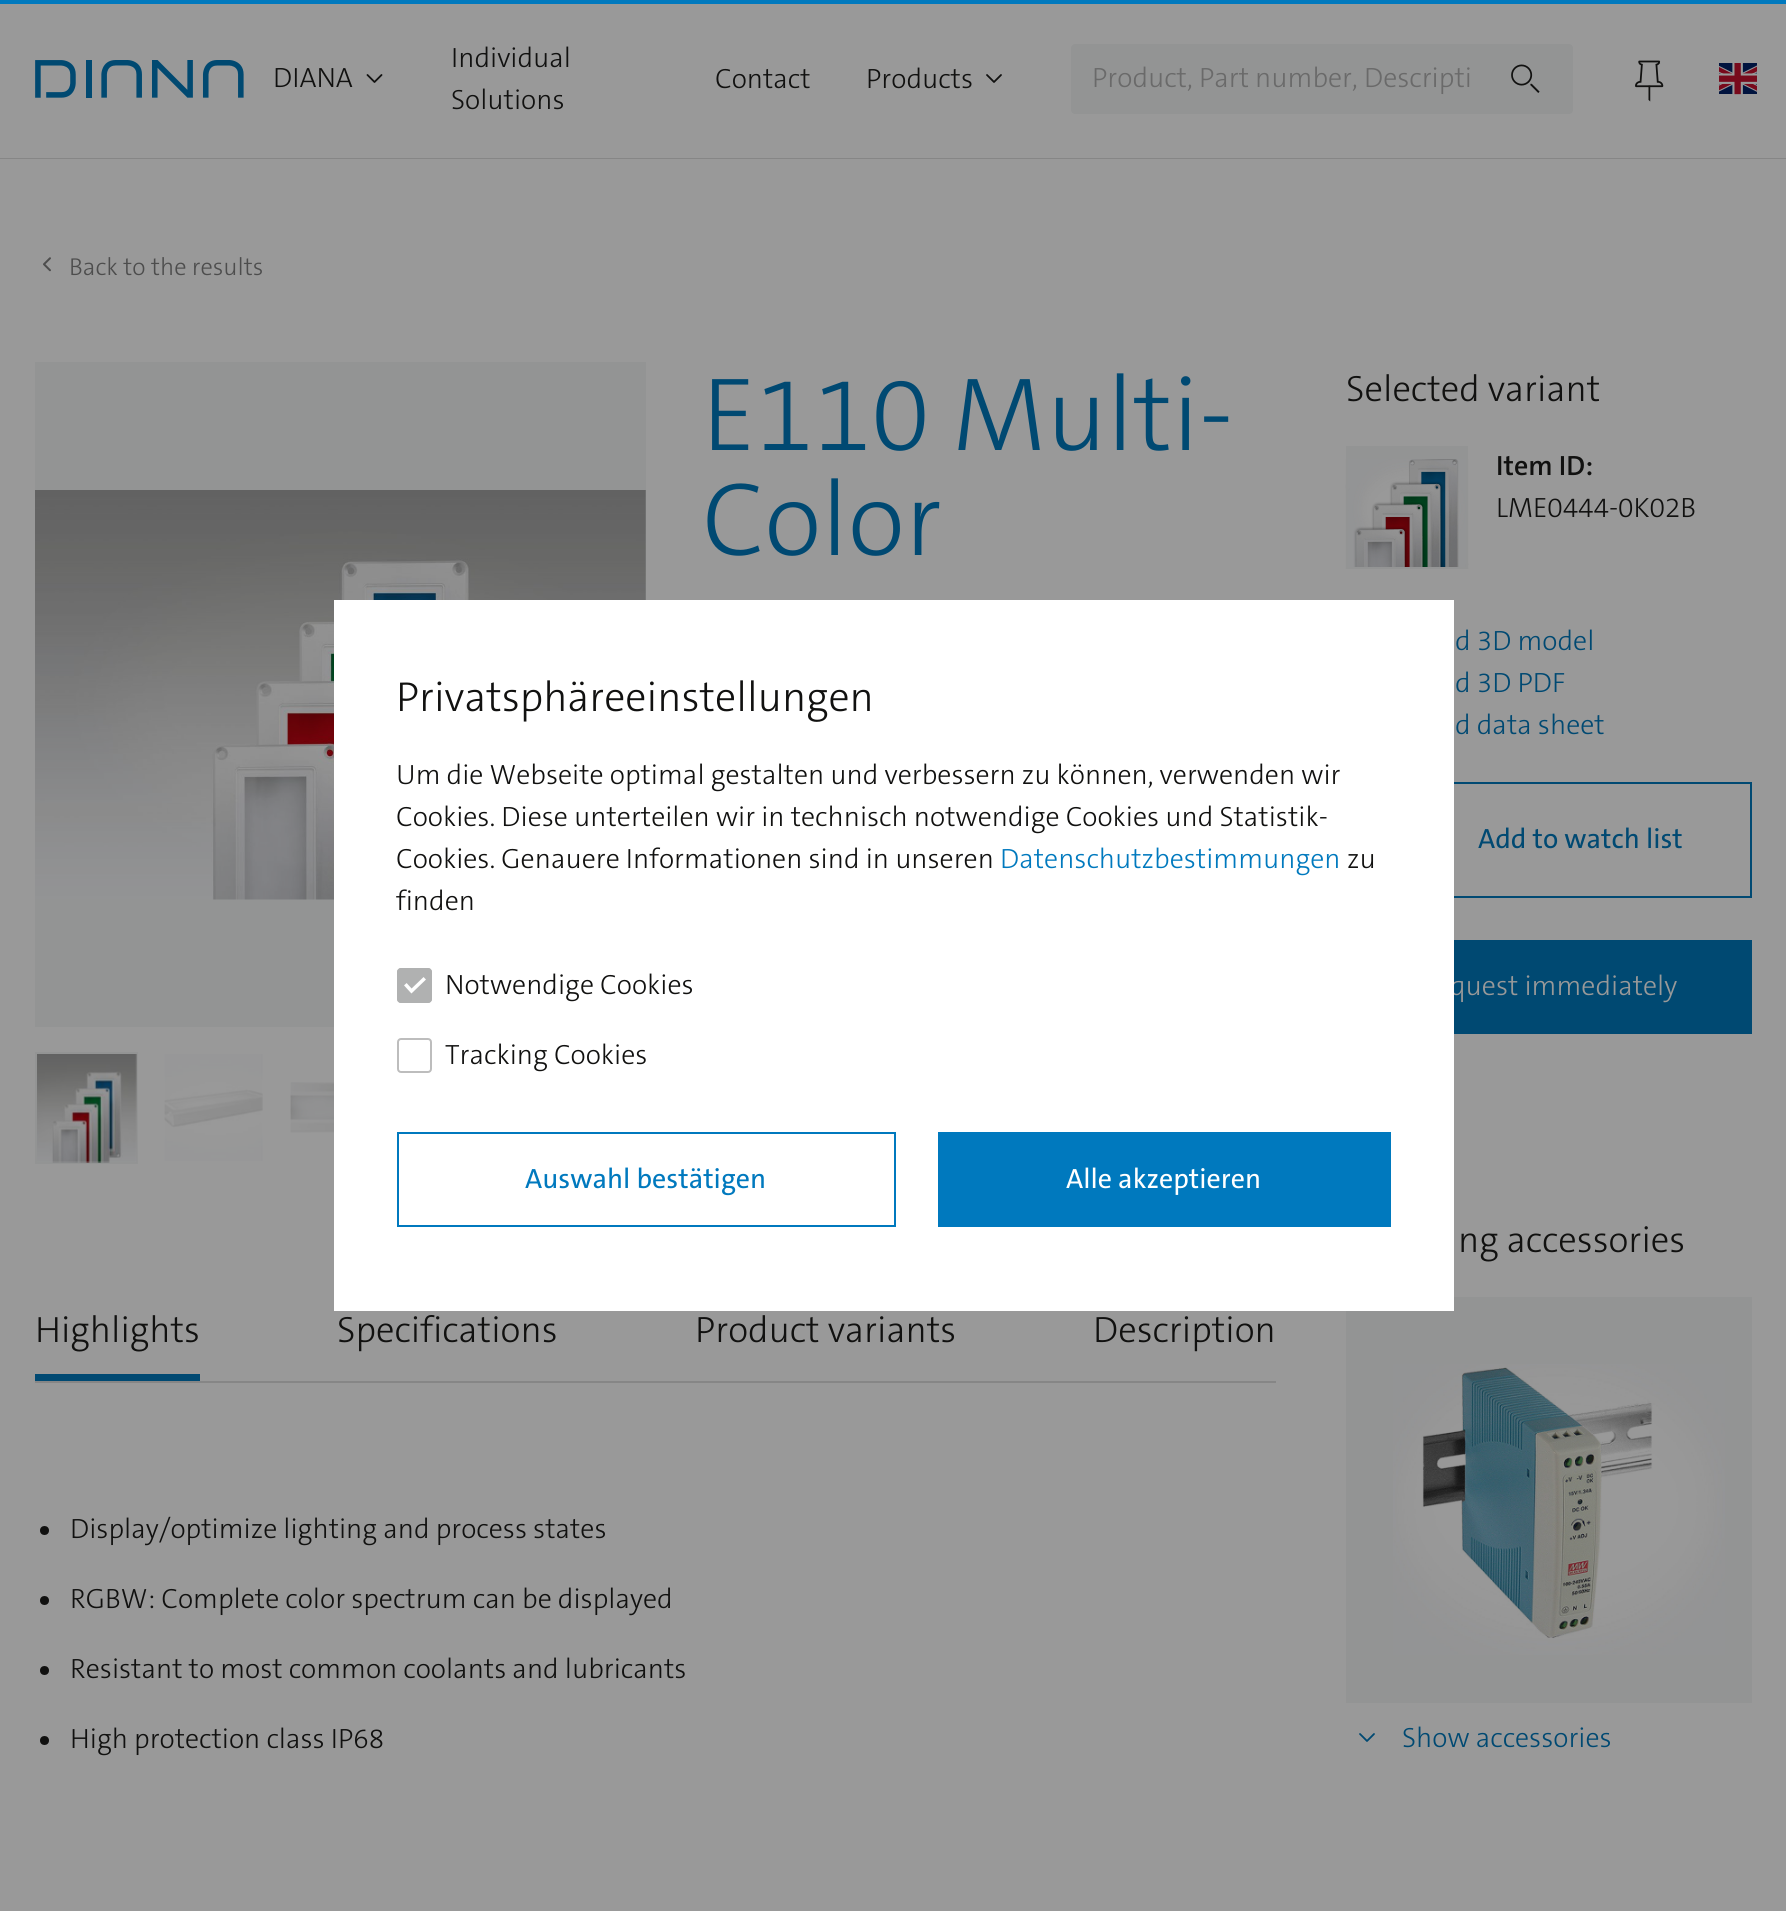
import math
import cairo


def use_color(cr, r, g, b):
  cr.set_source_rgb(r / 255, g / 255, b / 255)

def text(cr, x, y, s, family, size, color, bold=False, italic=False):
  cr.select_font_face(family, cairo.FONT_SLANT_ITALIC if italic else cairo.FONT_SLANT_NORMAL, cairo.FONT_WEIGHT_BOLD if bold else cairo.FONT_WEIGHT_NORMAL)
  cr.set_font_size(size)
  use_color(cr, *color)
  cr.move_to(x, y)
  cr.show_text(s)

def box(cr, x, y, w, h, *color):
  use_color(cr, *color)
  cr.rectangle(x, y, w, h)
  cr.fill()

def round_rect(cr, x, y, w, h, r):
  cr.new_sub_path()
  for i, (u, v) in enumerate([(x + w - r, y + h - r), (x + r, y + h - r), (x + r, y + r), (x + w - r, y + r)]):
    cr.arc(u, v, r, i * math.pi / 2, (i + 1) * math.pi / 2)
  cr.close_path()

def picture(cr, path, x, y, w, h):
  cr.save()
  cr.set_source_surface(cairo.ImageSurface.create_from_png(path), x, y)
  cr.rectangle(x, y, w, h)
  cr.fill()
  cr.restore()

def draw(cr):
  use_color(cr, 153, 153, 153)
  cr.paint()
  cr.rectangle(1, -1, 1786, 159)
  use_color(cr, 134, 134, 134)
  cr.stroke()
  box(cr, 0, 4, 1786, 154, 153, 153, 153)
  picture(cr, "img_01.png", 35, 60, 209, 38)
  cr.new_path()
  cr.move_to(367.5, 75)
  cr.line_to(374.5, 82)
  cr.line_to(381.5, 75)
  use_color(cr, 17, 17, 16)
  cr.set_line_width(1.8)
  cr.set_line_cap(cairo.LINE_CAP_ROUND)
  cr.set_line_join(cairo.LINE_JOIN_ROUND)
  cr.stroke()
  cr.new_path()
  cr.move_to(987, 75)
  cr.line_to(994, 82)
  cr.line_to(1001, 75)
  cr.stroke()
  use_color(cr, 147, 148, 148)
  round_rect(cr, 1071, 44, 502, 70, 4)
  cr.fill()
  picture(cr, "img_02.png", 1511, 64, 29, 29)
  picture(cr, "img_03.png", 1635, 60, 29, 42)
  picture(cr, "img_04.png", 1719, 63, 38, 32)
  box(cr, 0, 0, 1786, 4, 0, 121, 190)
  picture(cr, "img_05.png", 43, 257, 8, 15)
  box(cr, 35, 362, 611, 665, 147, 148, 148)
  picture(cr, "img_06.png", 35, 490, 611, 410)
  cr.rectangle(36, 1053, 101, 110)
  cr.set_line_width(2)
  cr.set_line_cap(cairo.LINE_CAP_BUTT)
  cr.set_line_join(cairo.LINE_JOIN_MITER)
  cr.stroke()
  picture(cr, "img_07.png", 37, 1054, 100, 109)
  picture(cr, "img_08.png", 164, 1054, 99, 107)
  picture(cr, "img_09.png", 290, 1082, 44, 51)
  box(cr, 1348, 448, 118, 11, 147, 148, 148)
  picture(cr, "img_10.png", 1345, 459, 124, 110)
  cr.rectangle(1347, 447, 120, 121)
  cr.stroke()
  cr.rectangle(1347, 783, 404, 114)
  use_color(cr, 0, 73, 114)
  cr.stroke()
  box(cr, 1454, 940, 298, 94, 0, 73, 114)
  box(cr, 1346, 1297, 406, 406, 147, 148, 148)
  picture(cr, "img_11.png", 1393, 1364, 332, 291)
  cr.new_path()
  cr.move_to(1360, 1734)
  cr.line_to(1367, 1741)
  cr.line_to(1374, 1734)
  use_color(cr, 0, 73, 114)
  cr.set_line_width(1.8)
  cr.set_line_cap(cairo.LINE_CAP_ROUND)
  cr.set_line_join(cairo.LINE_JOIN_ROUND)
  cr.stroke()
  box(cr, 35, 1381, 1241, 2, 134, 134, 134)
  box(cr, 35, 1374, 165, 7, 0, 73, 114)
  use_color(cr, 17, 17, 16)
  cr.arc(44.5, 1530.5, 4.5, 0, 2 * math.pi)
  cr.fill()
  cr.arc(44.5, 1600.5, 4.5, 0, 2 * math.pi)
  cr.fill()
  cr.arc(44.5, 1670.5, 4.5, 0, 2 * math.pi)
  cr.fill()
  cr.arc(44.5, 1740.5, 4.5, 0, 2 * math.pi)
  cr.fill()
  text(cr, 273, 87, "DIANA", "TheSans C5 Light", 28, (17, 17, 16))
  text(cr, 451, 67, "Individual", "TheSans C5 Light", 28, (17, 17, 16))
  text(cr, 451, 109, "Solutions", "TheSans C5 Light", 28, (17, 17, 16))
  text(cr, 715, 88, "Contact", "TheSans C5 Light", 28, (17, 17, 16))
  text(cr, 866, 88, "Products", "TheSans C5 Light", 28, (17, 17, 16))
  text(cr, 1092, 87, "Product, Part number, Descripti", "TheSans C5 Light", 28, (106, 106, 106))
  text(cr, 69, 275, "Back to the results", "TheSans C5 Light", 24.5, (77, 77, 77))
  text(cr, 702, 450, "E110 Multi-", "TheSans C5 Light", 105, (0, 73, 114))
  text(cr, 702, 555, "Color", "TheSans C5 Light", 105, (0, 73, 114))
  text(cr, 1346, 401, "Selected variant", "TheSans C5 Light", 36.75, (17, 17, 16))
  text(cr, 1496, 475, "Item ID:", "TheSans C5 SemiBold", 28, (17, 17, 16))
  text(cr, 1496, 517, "LME0444-0K02B", "TheSans C5 Light", 28, (17, 17, 16))
  text(cr, 1455, 650, "d 3D model", "TheSans C5 Light", 28, (0, 73, 114))
  text(cr, 1455, 692, "d 3D PDF", "TheSans C5 Light", 28, (0, 73, 114))
  text(cr, 1455, 734, "d data sheet", "TheSans C5 Light", 28, (0, 73, 114))
  text(cr, 1478, 848, "Add to watch list", "TheSans C5 Medium", 28, (0, 73, 114))
  text(cr, 1450, 995, "quest immediately", "TheSans C5 Light", 28, (153, 153, 153))
  text(cr, 1458, 1252, "ng accessories", "TheSans C5 Light", 36.75, (17, 17, 16))
  text(cr, 1402, 1747, "Show accessories", "TheSans C5 Light", 28, (0, 73, 114))
  text(cr, 35, 1342, "Highlights", "TheSans C5 Light", 36.75, (17, 17, 16))
  text(cr, 337, 1342, "Specifications", "TheSans C5 Light", 36.75, (17, 17, 16))
  text(cr, 695, 1342, "Product variants", "TheSans C5 Light", 36.75, (17, 17, 16))
  text(cr, 1093, 1342, "Description", "TheSans C5 Light", 36.75, (17, 17, 16))
  text(cr, 70, 1538, "Display/optimize lighting and process states", "TheSans C5 Light", 28, (17, 17, 16))
  text(cr, 70, 1608, "RGBW: Complete color spectrum can be displayed", "TheSans C5 Light", 28, (17, 17, 16))
  text(cr, 70, 1678, "Resistant to most common coolants and lubricants", "TheSans C5 Light", 28, (17, 17, 16))
  text(cr, 70, 1748, "High protection class IP68", "TheSans C5 Light", 28, (17, 17, 16))
  box(cr, 334, 600, 1120, 711, 255, 255, 255)
  text(cr, 396, 711, "Privatsphäreeinstellungen", "TheSans C5 Light", 42, (17, 17, 16))
  text(cr, 396, 784, "Um die Webseite optimal gestalten und verbessern zu können, verwenden wir", "TheSans C5 Light", 28, (17, 17, 16))
  text(cr, 396, 826, "Cookies. Diese unterteilen wir in technisch notwendige Cookies und Statistik-", "TheSans C5 Light", 28, (17, 17, 16))
  text(cr, 396, 868, "Cookies. Genauere Informationen sind in unseren", "TheSans C5 Light", 28, (17, 17, 16))
  text(cr, 1000, 868, "Datenschutzbestimmungen", "TheSans C5 Light", 28, (0, 121, 190))
  text(cr, 1347, 868, "zu", "TheSans C5 Light", 28, (17, 17, 16))
  text(cr, 396, 910, "finden", "TheSans C5 Light", 28, (17, 17, 16))
  round_rect(cr, 398, 969, 33, 33, 3)
  use_color(cr, 189, 189, 189)
  cr.set_line_width(2)
  cr.set_line_cap(cairo.LINE_CAP_BUTT)
  cr.set_line_join(cairo.LINE_JOIN_MITER)
  cr.stroke()
  use_color(cr, 176, 177, 177)
  round_rect(cr, 397, 968, 35, 35, 4)
  cr.fill()
  cr.new_path()
  cr.move_to(423.5, 979.5)
  cr.line_to(411.5, 991)
  cr.line_to(406.5, 985.5)
  use_color(cr, 255, 255, 255)
  cr.set_line_width(3.5)
  cr.set_line_cap(cairo.LINE_CAP_SQUARE)
  cr.stroke()
  text(cr, 445, 994, "Notwendige Cookies", "TheSans C5 Light", 28, (17, 17, 16))
  round_rect(cr, 398, 1039, 33, 33, 3)
  use_color(cr, 189, 189, 189)
  cr.set_line_width(2)
  cr.set_line_cap(cairo.LINE_CAP_BUTT)
  cr.stroke()
  text(cr, 445, 1064, "Tracking Cookies", "TheSans C5 Light", 28, (17, 17, 16))
  cr.rectangle(398, 1133, 497, 93)
  use_color(cr, 0, 121, 190)
  cr.stroke()
  text(cr, 525, 1188, "Auswahl bestätigen", "TheSans C5 Medium", 28, (0, 121, 190))
  box(cr, 938, 1132, 453, 95, 0, 121, 190)
  text(cr, 1066, 1188, "Alle akzeptieren", "TheSans C5 Medium", 28, (255, 255, 255))


surface = cairo.ImageSurface(cairo.FORMAT_RGB24, 1786, 1911)
cr = cairo.Context(surface)
options = cairo.FontOptions()
options.set_hint_metrics(cairo.HINT_METRICS_OFF)
options.set_hint_style(cairo.HINT_STYLE_NONE)
cr.set_font_options(options)
cr.set_miter_limit(4)
draw(cr)
surface.write_to_png("out.png")
